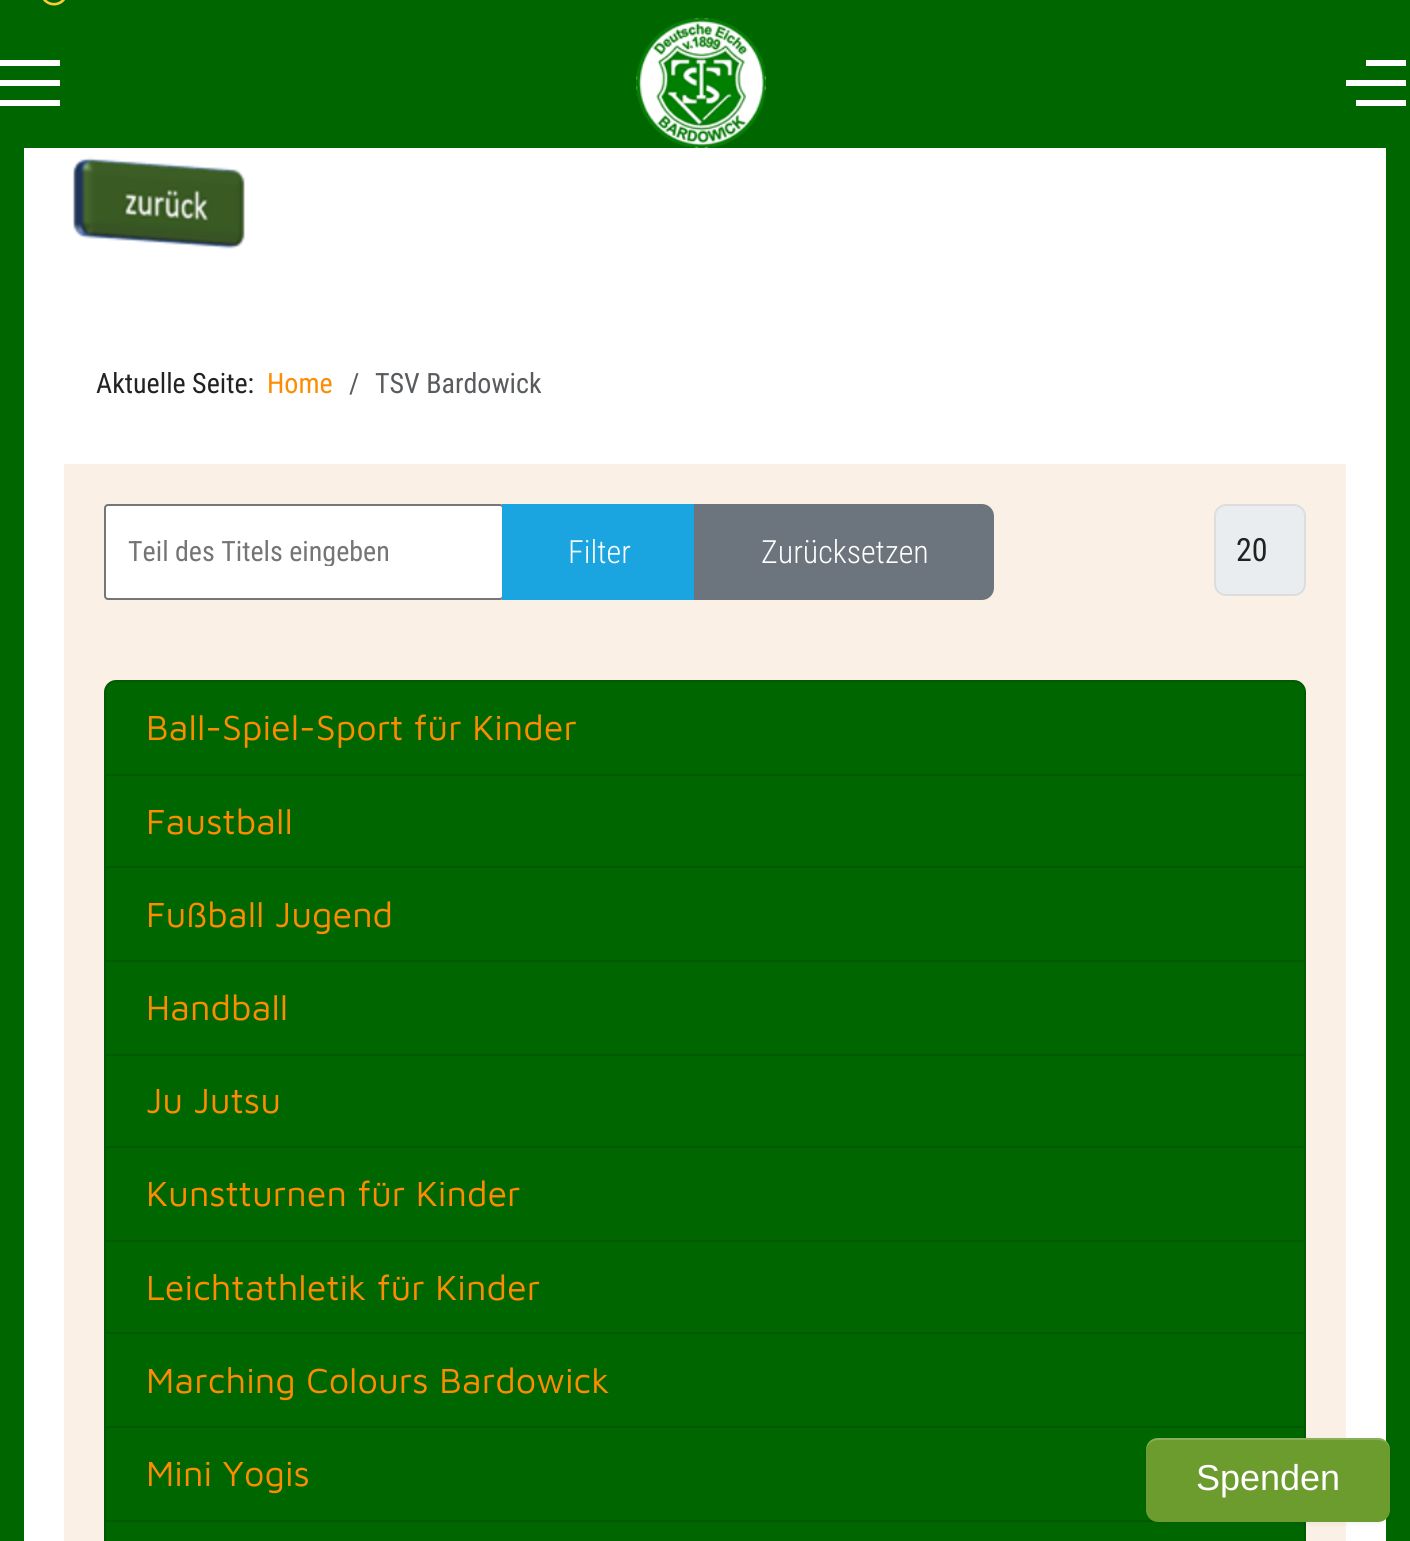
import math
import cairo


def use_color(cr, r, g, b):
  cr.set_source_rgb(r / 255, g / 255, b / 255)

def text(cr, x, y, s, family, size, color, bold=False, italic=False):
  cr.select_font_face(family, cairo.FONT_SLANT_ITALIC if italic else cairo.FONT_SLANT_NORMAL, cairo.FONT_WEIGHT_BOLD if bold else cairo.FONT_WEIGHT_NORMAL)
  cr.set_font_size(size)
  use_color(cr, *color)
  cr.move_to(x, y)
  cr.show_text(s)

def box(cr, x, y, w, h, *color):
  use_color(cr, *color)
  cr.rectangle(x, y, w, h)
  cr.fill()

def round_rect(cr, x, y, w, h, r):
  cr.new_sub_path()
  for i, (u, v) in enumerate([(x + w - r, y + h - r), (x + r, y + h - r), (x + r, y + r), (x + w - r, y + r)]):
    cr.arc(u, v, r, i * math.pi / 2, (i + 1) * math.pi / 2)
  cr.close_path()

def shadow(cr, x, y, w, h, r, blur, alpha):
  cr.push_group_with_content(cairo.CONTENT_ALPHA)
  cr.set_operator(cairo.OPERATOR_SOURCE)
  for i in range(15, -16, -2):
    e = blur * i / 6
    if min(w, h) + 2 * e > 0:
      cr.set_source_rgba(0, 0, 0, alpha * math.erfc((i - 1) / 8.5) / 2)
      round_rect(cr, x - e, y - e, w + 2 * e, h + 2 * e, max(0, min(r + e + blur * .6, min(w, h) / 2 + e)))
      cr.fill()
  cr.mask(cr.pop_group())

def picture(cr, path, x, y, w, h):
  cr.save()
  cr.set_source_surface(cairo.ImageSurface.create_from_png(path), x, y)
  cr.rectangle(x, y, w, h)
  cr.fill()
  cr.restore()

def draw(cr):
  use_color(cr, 0, 102, 0)
  cr.paint()
  picture(cr, "img_01.png", 43, 0, 22, 6)
  box(cr, 0, 80, 60, 6, 255, 255, 255)
  box(cr, 0, 60, 60, 6, 255, 255, 255)
  box(cr, 0, 100, 60, 6, 255, 255, 255)
  picture(cr, "img_02.png", 636, 18, 130, 130)
  box(cr, 1346, 80, 60, 6, 255, 255, 255)
  box(cr, 1366, 60, 40, 6, 255, 255, 255)
  box(cr, 1356, 100, 50, 6, 255, 255, 255)
  box(cr, 24, 148, 1362, 1393, 255, 255, 255)
  picture(cr, "img_03.png", 72, 157, 173, 92)
  box(cr, 64, 464, 1282, 1077, 250, 240, 230)
  use_color(cr, 255, 255, 255)
  round_rect(cr, 105, 505, 398, 94, 3)
  cr.fill_preserve()
  use_color(cr, 118, 118, 118)
  cr.stroke()
  box(cr, 502, 504, 192, 96, 26, 164, 224)
  use_color(cr, 108, 117, 125)
  cr.new_path()
  cr.move_to(695, 505)
  cr.line_to(982, 505)
  cr.curve_to(988, 505, 993, 510, 993, 516)
  cr.line_to(993, 588)
  cr.curve_to(993, 594, 988, 599, 982, 599)
  cr.line_to(695, 599)
  cr.close_path()
  cr.fill_preserve()
  cr.stroke()
  use_color(cr, 234, 237, 240)
  round_rect(cr, 1215, 505, 90, 90, 11)
  cr.fill_preserve()
  use_color(cr, 221, 221, 221)
  cr.stroke()
  use_color(cr, 0, 102, 0)
  cr.new_path()
  cr.move_to(116, 680)
  cr.line_to(1294, 680)
  cr.curve_to(1300.5, 680, 1306, 685.5, 1306, 692)
  cr.line_to(1306, 776)
  cr.line_to(104, 776)
  cr.line_to(104, 692)
  cr.curve_to(104, 685.5, 109.5, 680, 116, 680)
  cr.close_path()
  cr.fill()
  cr.new_path()
  cr.move_to(116, 681)
  cr.line_to(1294, 681)
  cr.curve_to(1300, 681, 1305, 686, 1305, 692)
  cr.line_to(1305, 775)
  cr.line_to(105, 775)
  cr.line_to(105, 692)
  cr.curve_to(105, 686, 110, 681, 116, 681)
  cr.close_path()
  cr.set_source_rgba(0, 0, 0, 0.12)
  cr.stroke()
  use_color(cr, 0, 102, 0)
  cr.rectangle(105, 775, 1200, 92)
  cr.fill_preserve()
  use_color(cr, 0, 89, 0)
  cr.stroke()
  use_color(cr, 0, 102, 0)
  cr.rectangle(105, 867, 1200, 94)
  cr.fill_preserve()
  use_color(cr, 0, 89, 0)
  cr.stroke()
  use_color(cr, 0, 102, 0)
  cr.rectangle(105, 961, 1200, 94)
  cr.fill_preserve()
  use_color(cr, 0, 89, 0)
  cr.stroke()
  use_color(cr, 0, 102, 0)
  cr.rectangle(105, 1055, 1200, 92)
  cr.fill_preserve()
  use_color(cr, 0, 89, 0)
  cr.stroke()
  use_color(cr, 0, 102, 0)
  cr.rectangle(105, 1147, 1200, 94)
  cr.fill_preserve()
  use_color(cr, 0, 89, 0)
  cr.stroke()
  use_color(cr, 0, 102, 0)
  cr.rectangle(105, 1241, 1200, 92)
  cr.fill_preserve()
  use_color(cr, 0, 89, 0)
  cr.stroke()
  use_color(cr, 0, 102, 0)
  cr.rectangle(105, 1333, 1200, 94)
  cr.fill_preserve()
  use_color(cr, 0, 89, 0)
  cr.stroke()
  use_color(cr, 0, 102, 0)
  cr.rectangle(105, 1427, 1200, 94)
  cr.fill_preserve()
  use_color(cr, 0, 89, 0)
  cr.stroke()
  use_color(cr, 0, 102, 0)
  cr.rectangle(105, 1521, 1200, 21)
  cr.fill_preserve()
  use_color(cr, 0, 89, 0)
  cr.stroke()
  use_color(cr, 0, 0, 0)
  shadow(cr, 1146, 1440, 244, 84, 12, 2, 0.05)
  use_color(cr, 108, 156, 46)
  round_rect(cr, 1146, 1438, 244, 84, 12)
  cr.fill()
  cr.set_source_rgba(1, 1, 1, 0.2)
  cr.new_path()
  cr.move_to(1158, 1440)
  cr.line_to(1378, 1440)
  cr.curve_to(1385, 1440, 1390, 1445, 1390, 1452)
  cr.line_to(1390, 1450)
  cr.curve_to(1390, 1443, 1385, 1438, 1378, 1438)
  cr.line_to(1158, 1438)
  cr.curve_to(1151, 1438, 1146, 1443, 1146, 1450)
  cr.line_to(1146, 1452)
  cr.curve_to(1146, 1445, 1151, 1440, 1158, 1440)
  cr.close_path()
  cr.fill()
  text(cr, 96, 393, "Aktuelle Seite:", "Roboto Condensed", 28, (34, 34, 34))
  text(cr, 267, 393, "Home", "Roboto Condensed", 28, (255, 140, 0))
  text(cr, 349, 393, "/", "Roboto Condensed", 28, (89, 92, 95))
  text(cr, 375, 393, "TSV Bardowick", "Roboto Condensed", 28, (89, 92, 95))
  cr.save()
  cr.rectangle(128, 534, 352, 32)
  cr.clip()
  text(cr, 128, 561, "Teil des Titels eingeben", "Roboto Condensed", 28, (117, 117, 117))
  cr.restore()
  text(cr, 568, 563, "Filter", "Roboto Condensed Light", 32, (255, 255, 255))
  text(cr, 761, 563, "Zurücksetzen", "Roboto Condensed Light", 32, (255, 255, 255))
  text(cr, 1236, 561, "20", "Roboto Condensed", 32, (34, 34, 34))
  text(cr, 146, 740, "Ball-Spiel-Sport für Kinder", "Maven Pro", 36, (255, 140, 0))
  text(cr, 146, 834, "Faustball", "Maven Pro", 36, (255, 140, 0))
  text(cr, 146, 927, "Fußball Jugend", "Maven Pro", 36, (255, 140, 0))
  text(cr, 146, 1020, "Handball", "Maven Pro", 36, (255, 140, 0))
  text(cr, 146, 1113, "Ju Jutsu", "Maven Pro", 36, (255, 140, 0))
  text(cr, 146, 1206, "Kunstturnen für Kinder", "Maven Pro", 36, (255, 140, 0))
  text(cr, 146, 1300, "Leichtathletik für Kinder", "Maven Pro", 36, (255, 140, 0))
  text(cr, 146, 1393, "Marching Colours Bardowick", "Maven Pro", 36, (255, 140, 0))
  text(cr, 146, 1486, "Mini Yogis", "Maven Pro", 36, (255, 140, 0))
  text(cr, 1196, 1490, "Spenden", "Liberation Sans", 36, (255, 255, 255))


surface = cairo.ImageSurface(cairo.FORMAT_RGB24, 1410, 1541)
cr = cairo.Context(surface)
options = cairo.FontOptions()
options.set_hint_metrics(cairo.HINT_METRICS_OFF)
options.set_hint_style(cairo.HINT_STYLE_NONE)
cr.set_font_options(options)
cr.set_miter_limit(4)
draw(cr)
surface.write_to_png("out.png")
